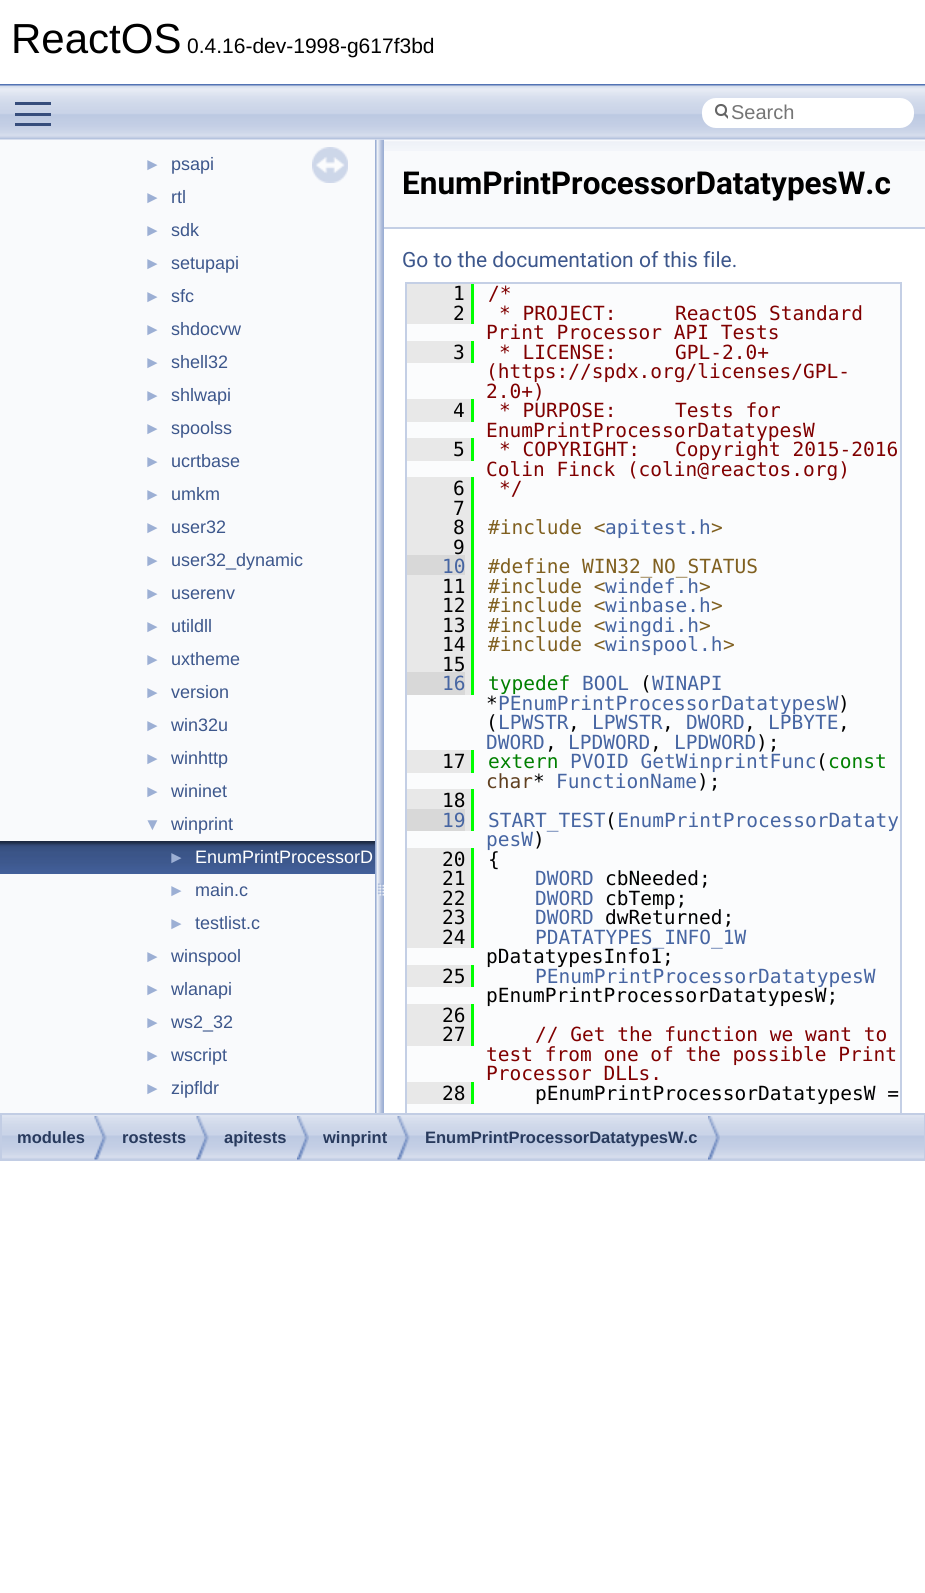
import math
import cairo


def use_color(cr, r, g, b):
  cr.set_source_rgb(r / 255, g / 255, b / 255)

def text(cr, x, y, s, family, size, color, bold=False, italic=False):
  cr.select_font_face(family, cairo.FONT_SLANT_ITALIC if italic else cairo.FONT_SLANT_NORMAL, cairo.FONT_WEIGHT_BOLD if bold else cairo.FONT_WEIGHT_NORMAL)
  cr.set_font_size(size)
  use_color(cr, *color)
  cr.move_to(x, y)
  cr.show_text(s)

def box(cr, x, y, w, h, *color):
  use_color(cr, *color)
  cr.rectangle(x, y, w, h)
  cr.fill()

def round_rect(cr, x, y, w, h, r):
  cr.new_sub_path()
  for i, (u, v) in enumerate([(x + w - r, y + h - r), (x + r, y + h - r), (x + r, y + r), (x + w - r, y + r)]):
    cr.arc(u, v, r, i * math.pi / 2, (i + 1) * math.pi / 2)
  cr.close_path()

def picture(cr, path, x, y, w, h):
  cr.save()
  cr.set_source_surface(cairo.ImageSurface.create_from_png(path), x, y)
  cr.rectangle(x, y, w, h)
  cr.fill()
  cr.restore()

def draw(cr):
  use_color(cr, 255, 255, 255)
  cr.paint()
  box(cr, 0, 84, 925, 2, 83, 115, 180)
  picture(cr, "img_04.png", 375, 139, 9, 974)
  picture(cr, "img_01.png", 0, 85, 925, 55)
  box(cr, 15, 113, 36, 3, 54, 77, 124)
  box(cr, 15, 102, 36, 3, 54, 77, 124)
  box(cr, 15, 123, 36, 3, 54, 77, 124)
  use_color(cr, 255, 255, 255)
  round_rect(cr, 702, 98, 212, 30, 14)
  cr.fill()
  cr.arc(721, 110, 5, 0, 2 * math.pi)
  use_color(cr, 101, 101, 101)
  cr.set_line_width(2.1)
  cr.stroke()
  cr.save()
  cr.rectangle(713, 98, 15, 28)
  cr.clip()
  cr.new_path()
  cr.move_to(724.5, 114)
  cr.line_to(729, 118.5)
  cr.set_line_cap(cairo.LINE_CAP_ROUND)
  cr.stroke()
  cr.restore()
  box(cr, 0, 140, 375, 973, 249, 250, 252)
  picture(cr, "img_02.png", 312, 147, 36, 36)
  picture(cr, "img_03.png", 0, 841, 375, 33)
  box(cr, 384, 140, 541, 87, 249, 250, 252)
  picture(cr, "img_05.png", 384, 141, 541, 10)
  box(cr, 384, 227, 541, 2, 196, 207, 229)
  box(cr, 407, 284, 493, 829, 251, 252, 253)
  cr.save()
  cr.rectangle(384, 140, 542, 973)
  cr.clip()
  cr.rectangle(406, 283, 495, 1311)
  use_color(cr, 196, 207, 229)
  cr.set_line_width(2)
  cr.stroke()
  cr.restore()
  box(cr, 407, 284, 64, 40, 232, 232, 232)
  box(cr, 471, 284, 3, 40, 0, 255, 0)
  box(cr, 407, 341, 64, 22, 232, 232, 232)
  box(cr, 471, 341, 3, 22, 0, 255, 0)
  box(cr, 407, 399, 64, 23, 232, 232, 232)
  box(cr, 471, 399, 3, 23, 0, 255, 0)
  box(cr, 407, 438, 64, 23, 232, 232, 232)
  box(cr, 471, 438, 3, 23, 0, 255, 0)
  box(cr, 407, 477, 64, 78, 232, 232, 232)
  box(cr, 471, 477, 3, 218, 0, 255, 0)
  box(cr, 465, 555, 6, 20, 232, 232, 232)
  box(cr, 407, 555, 58, 20, 216, 216, 216)
  box(cr, 407, 575, 64, 97, 232, 232, 232)
  box(cr, 465, 672, 6, 23, 232, 232, 232)
  box(cr, 407, 672, 58, 23, 216, 216, 216)
  box(cr, 407, 750, 64, 23, 232, 232, 232)
  box(cr, 471, 750, 3, 23, 0, 255, 0)
  box(cr, 407, 789, 64, 20, 232, 232, 232)
  box(cr, 471, 789, 3, 42, 0, 255, 0)
  box(cr, 465, 809, 6, 22, 232, 232, 232)
  box(cr, 407, 809, 58, 22, 216, 216, 216)
  box(cr, 407, 848, 64, 100, 232, 232, 232)
  box(cr, 471, 848, 3, 100, 0, 255, 0)
  box(cr, 407, 965, 64, 22, 232, 232, 232)
  box(cr, 471, 965, 3, 22, 0, 255, 0)
  box(cr, 407, 1004, 64, 42, 232, 232, 232)
  box(cr, 471, 1004, 3, 42, 0, 255, 0)
  box(cr, 407, 1082, 64, 22, 232, 232, 232)
  box(cr, 471, 1082, 3, 22, 0, 255, 0)
  picture(cr, "img_06.png", 2, 1115, 922, 44)
  cr.rectangle(1, 1114, 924, 46)
  use_color(cr, 194, 205, 228)
  cr.set_line_width(2)
  cr.stroke()
  picture(cr, "img_07.png", 94, 1116, 13, 44)
  picture(cr, "img_07.png", 196, 1116, 13, 44)
  picture(cr, "img_08.png", 297, 1116, 12, 44)
  picture(cr, "img_09.png", 397, 1116, 13, 44)
  picture(cr, "img_08.png", 708, 1116, 12, 44)
  text(cr, 11, 53, "ReactOS", "Liberation Sans", 42, (0, 0, 0))
  text(cr, 187, 53, "0.4.16-dev-1998-g617f3bd", "Liberation Sans", 21, (0, 0, 0))
  text(cr, 731, 119, "Search", "Liberation Sans", 20, (117, 117, 117))
  text(cr, 144, 170, "►", "Liberation Sans", 17, (156, 175, 212))
  text(cr, 171, 170, "psapi", "Liberation Sans", 18, (61, 87, 140))
  text(cr, 144, 203, "►", "Liberation Sans", 17, (156, 175, 212))
  text(cr, 171, 203, "rtl", "Liberation Sans", 18, (61, 87, 140))
  text(cr, 144, 236, "►", "Liberation Sans", 17, (156, 175, 212))
  text(cr, 171, 236, "sdk", "Liberation Sans", 18, (61, 87, 140))
  text(cr, 144, 269, "►", "Liberation Sans", 17, (156, 175, 212))
  text(cr, 171, 269, "setupapi", "Liberation Sans", 18, (61, 87, 140))
  text(cr, 144, 302, "►", "Liberation Sans", 17, (156, 175, 212))
  text(cr, 171, 302, "sfc", "Liberation Sans", 18, (61, 87, 140))
  text(cr, 144, 335, "►", "Liberation Sans", 17, (156, 175, 212))
  text(cr, 171, 335, "shdocvw", "Liberation Sans", 18, (61, 87, 140))
  text(cr, 144, 368, "►", "Liberation Sans", 17, (156, 175, 212))
  text(cr, 171, 368, "shell32", "Liberation Sans", 18, (61, 87, 140))
  text(cr, 144, 401, "►", "Liberation Sans", 17, (156, 175, 212))
  text(cr, 171, 401, "shlwapi", "Liberation Sans", 18, (61, 87, 140))
  text(cr, 144, 434, "►", "Liberation Sans", 17, (156, 175, 212))
  text(cr, 171, 434, "spoolss", "Liberation Sans", 18, (61, 87, 140))
  text(cr, 144, 467, "►", "Liberation Sans", 17, (156, 175, 212))
  text(cr, 171, 467, "ucrtbase", "Liberation Sans", 18, (61, 87, 140))
  text(cr, 144, 500, "►", "Liberation Sans", 17, (156, 175, 212))
  text(cr, 171, 500, "umkm", "Liberation Sans", 18, (61, 87, 140))
  text(cr, 144, 533, "►", "Liberation Sans", 17, (156, 175, 212))
  text(cr, 171, 533, "user32", "Liberation Sans", 18, (61, 87, 140))
  text(cr, 144, 566, "►", "Liberation Sans", 17, (156, 175, 212))
  text(cr, 171, 566, "user32_dynamic", "Liberation Sans", 18, (61, 87, 140))
  text(cr, 144, 599, "►", "Liberation Sans", 17, (156, 175, 212))
  text(cr, 171, 599, "userenv", "Liberation Sans", 18, (61, 87, 140))
  text(cr, 144, 632, "►", "Liberation Sans", 17, (156, 175, 212))
  text(cr, 171, 632, "utildll", "Liberation Sans", 18, (61, 87, 140))
  text(cr, 144, 665, "►", "Liberation Sans", 17, (156, 175, 212))
  text(cr, 171, 665, "uxtheme", "Liberation Sans", 18, (61, 87, 140))
  text(cr, 144, 698, "►", "Liberation Sans", 17, (156, 175, 212))
  text(cr, 171, 698, "version", "Liberation Sans", 18, (61, 87, 140))
  text(cr, 144, 731, "►", "Liberation Sans", 17, (156, 175, 212))
  text(cr, 171, 731, "win32u", "Liberation Sans", 18, (61, 87, 140))
  text(cr, 144, 764, "►", "Liberation Sans", 17, (156, 175, 212))
  text(cr, 171, 764, "winhttp", "Liberation Sans", 18, (61, 87, 140))
  text(cr, 144, 797, "►", "Liberation Sans", 17, (156, 175, 212))
  text(cr, 171, 797, "wininet", "Liberation Sans", 18, (61, 87, 140))
  text(cr, 144, 830, "▼", "Liberation Sans", 17, (156, 175, 212))
  text(cr, 171, 830, "winprint", "Liberation Sans", 18, (61, 87, 140))
  text(cr, 168, 863, "►", "Liberation Sans", 17, (156, 175, 212))
  text(cr, 195, 863, "EnumPrintProcessorD", "Liberation Sans", 18, (255, 255, 255))
  text(cr, 168, 896, "►", "Liberation Sans", 17, (156, 175, 212))
  text(cr, 195, 896, "main.c", "Liberation Sans", 18, (61, 87, 140))
  text(cr, 168, 929, "►", "Liberation Sans", 17, (156, 175, 212))
  text(cr, 195, 929, "testlist.c", "Liberation Sans", 18, (61, 87, 140))
  text(cr, 144, 962, "►", "Liberation Sans", 17, (156, 175, 212))
  text(cr, 171, 962, "winspool", "Liberation Sans", 18, (61, 87, 140))
  text(cr, 144, 995, "►", "Liberation Sans", 17, (156, 175, 212))
  text(cr, 171, 995, "wlanapi", "Liberation Sans", 18, (61, 87, 140))
  text(cr, 144, 1028, "►", "Liberation Sans", 17, (156, 175, 212))
  text(cr, 171, 1028, "ws2_32", "Liberation Sans", 18, (61, 87, 140))
  text(cr, 144, 1061, "►", "Liberation Sans", 17, (156, 175, 212))
  text(cr, 171, 1061, "wscript", "Liberation Sans", 18, (61, 87, 140))
  text(cr, 144, 1094, "►", "Liberation Sans", 17, (156, 175, 212))
  text(cr, 171, 1094, "zipfldr", "Liberation Sans", 18, (61, 87, 140))
  text(cr, 402, 194, "EnumPrintProcessorDatatypesW.c", "Roboto", 31.5, (0, 0, 0), bold=True)
  text(cr, 402, 267, "Go to the documentation of this file.", "Roboto", 21, (61, 87, 140))
  text(cr, 453, 300, "1", "DejaVu Sans Mono", 19.5, (0, 0, 0))
  text(cr, 488, 300, "/*", "DejaVu Sans Mono", 19.5, (128, 0, 0))
  text(cr, 453, 320, "2", "DejaVu Sans Mono", 19.5, (0, 0, 0))
  text(cr, 499, 320, "* PROJECT:     ReactOS Standard", "DejaVu Sans Mono", 19.5, (128, 0, 0))
  text(cr, 486, 339, "Print Processor API Tests", "DejaVu Sans Mono", 19.5, (128, 0, 0))
  text(cr, 453, 359, "3", "DejaVu Sans Mono", 19.5, (0, 0, 0))
  text(cr, 499, 359, "* LICENSE:     GPL-2.0+", "DejaVu Sans Mono", 19.5, (128, 0, 0))
  text(cr, 486, 378, "(https://spdx.org/licenses/GPL-", "DejaVu Sans Mono", 19.5, (128, 0, 0))
  text(cr, 486, 398, "2.0+)", "DejaVu Sans Mono", 19.5, (128, 0, 0))
  text(cr, 453, 417, "4", "DejaVu Sans Mono", 19.5, (0, 0, 0))
  text(cr, 499, 417, "* PURPOSE:     Tests for", "DejaVu Sans Mono", 19.5, (128, 0, 0))
  text(cr, 486, 437, "EnumPrintProcessorDatatypesW", "DejaVu Sans Mono", 19.5, (128, 0, 0))
  text(cr, 453, 456, "5", "DejaVu Sans Mono", 19.5, (0, 0, 0))
  text(cr, 499, 456, "* COPYRIGHT:   Copyright 2015-2016", "DejaVu Sans Mono", 19.5, (128, 0, 0))
  text(cr, 486, 476, "Colin Finck (colin@reactos.org)", "DejaVu Sans Mono", 19.5, (128, 0, 0))
  text(cr, 453, 495, "6", "DejaVu Sans Mono", 19.5, (0, 0, 0))
  text(cr, 499, 495, "*/", "DejaVu Sans Mono", 19.5, (128, 0, 0))
  text(cr, 453, 515, "7", "DejaVu Sans Mono", 19.5, (0, 0, 0))
  text(cr, 453, 534, "8", "DejaVu Sans Mono", 19.5, (0, 0, 0))
  text(cr, 488, 534, "#include <", "DejaVu Sans Mono", 19.5, (128, 96, 32))
  text(cr, 605, 534, "apitest.h", "DejaVu Sans Mono", 19.5, (70, 101, 162))
  text(cr, 711, 534, ">", "DejaVu Sans Mono", 19.5, (128, 96, 32))
  text(cr, 453, 554, "9", "DejaVu Sans Mono", 19.5, (0, 0, 0))
  text(cr, 442, 573, "10", "DejaVu Sans Mono", 19.5, (70, 101, 162))
  text(cr, 488, 573, "#define WIN32_NO_STATUS", "DejaVu Sans Mono", 19.5, (128, 96, 32))
  text(cr, 442, 593, "11", "DejaVu Sans Mono", 19.5, (0, 0, 0))
  text(cr, 488, 593, "#include <", "DejaVu Sans Mono", 19.5, (128, 96, 32))
  text(cr, 605, 593, "windef.h", "DejaVu Sans Mono", 19.5, (70, 101, 162))
  text(cr, 699, 593, ">", "DejaVu Sans Mono", 19.5, (128, 96, 32))
  text(cr, 442, 612, "12", "DejaVu Sans Mono", 19.5, (0, 0, 0))
  text(cr, 488, 612, "#include <", "DejaVu Sans Mono", 19.5, (128, 96, 32))
  text(cr, 605, 612, "winbase.h", "DejaVu Sans Mono", 19.5, (70, 101, 162))
  text(cr, 711, 612, ">", "DejaVu Sans Mono", 19.5, (128, 96, 32))
  text(cr, 442, 632, "13", "DejaVu Sans Mono", 19.5, (0, 0, 0))
  text(cr, 488, 632, "#include <", "DejaVu Sans Mono", 19.5, (128, 96, 32))
  text(cr, 605, 632, "wingdi.h", "DejaVu Sans Mono", 19.5, (70, 101, 162))
  text(cr, 699, 632, ">", "DejaVu Sans Mono", 19.5, (128, 96, 32))
  text(cr, 442, 651, "14", "DejaVu Sans Mono", 19.5, (0, 0, 0))
  text(cr, 488, 651, "#include <", "DejaVu Sans Mono", 19.5, (128, 96, 32))
  text(cr, 605, 651, "winspool.h", "DejaVu Sans Mono", 19.5, (70, 101, 162))
  text(cr, 723, 651, ">", "DejaVu Sans Mono", 19.5, (128, 96, 32))
  text(cr, 442, 671, "15", "DejaVu Sans Mono", 19.5, (0, 0, 0))
  text(cr, 442, 690, "16", "DejaVu Sans Mono", 19.5, (70, 101, 162))
  text(cr, 488, 690, "typedef", "DejaVu Sans Mono", 19.5, (0, 128, 0))
  text(cr, 582, 690, "BOOL", "DejaVu Sans Mono", 19.5, (70, 101, 162))
  text(cr, 640, 690, "(", "DejaVu Sans Mono", 19.5, (0, 0, 0))
  text(cr, 652, 690, "WINAPI", "DejaVu Sans Mono", 19.5, (70, 101, 162))
  text(cr, 486, 710, "*", "DejaVu Sans Mono", 19.5, (0, 0, 0))
  text(cr, 498, 710, "PEnumPrintProcessorDatatypesW", "DejaVu Sans Mono", 19.5, (70, 101, 162))
  text(cr, 838, 710, ")", "DejaVu Sans Mono", 19.5, (0, 0, 0))
  text(cr, 486, 729, "(", "DejaVu Sans Mono", 19.5, (0, 0, 0))
  text(cr, 498, 729, "LPWSTR", "DejaVu Sans Mono", 19.5, (70, 101, 162))
  text(cr, 568, 729, ",", "DejaVu Sans Mono", 19.5, (0, 0, 0))
  text(cr, 592, 729, "LPWSTR", "DejaVu Sans Mono", 19.5, (70, 101, 162))
  text(cr, 662, 729, ",", "DejaVu Sans Mono", 19.5, (0, 0, 0))
  text(cr, 686, 729, "DWORD", "DejaVu Sans Mono", 19.5, (70, 101, 162))
  text(cr, 744, 729, ",", "DejaVu Sans Mono", 19.5, (0, 0, 0))
  text(cr, 768, 729, "LPBYTE", "DejaVu Sans Mono", 19.5, (70, 101, 162))
  text(cr, 838, 729, ",", "DejaVu Sans Mono", 19.5, (0, 0, 0))
  text(cr, 486, 749, "DWORD", "DejaVu Sans Mono", 19.5, (70, 101, 162))
  text(cr, 545, 749, ",", "DejaVu Sans Mono", 19.5, (0, 0, 0))
  text(cr, 568, 749, "LPDWORD", "DejaVu Sans Mono", 19.5, (70, 101, 162))
  text(cr, 650, 749, ",", "DejaVu Sans Mono", 19.5, (0, 0, 0))
  text(cr, 674, 749, "LPDWORD", "DejaVu Sans Mono", 19.5, (70, 101, 162))
  text(cr, 756, 749, ");", "DejaVu Sans Mono", 19.5, (0, 0, 0))
  text(cr, 442, 768, "17", "DejaVu Sans Mono", 19.5, (0, 0, 0))
  text(cr, 488, 768, "extern", "DejaVu Sans Mono", 19.5, (0, 128, 0))
  text(cr, 570, 768, "PVOID GetWinprintFunc", "DejaVu Sans Mono", 19.5, (70, 101, 162))
  text(cr, 816, 768, "(", "DejaVu Sans Mono", 19.5, (0, 0, 0))
  text(cr, 828, 768, "const", "DejaVu Sans Mono", 19.5, (0, 128, 0))
  text(cr, 486, 788, "char", "DejaVu Sans Mono", 19.5, (96, 64, 32))
  text(cr, 533, 788, "*", "DejaVu Sans Mono", 19.5, (0, 0, 0))
  text(cr, 556, 788, "FunctionName", "DejaVu Sans Mono", 19.5, (70, 101, 162))
  text(cr, 697, 788, ");", "DejaVu Sans Mono", 19.5, (0, 0, 0))
  text(cr, 442, 807, "18", "DejaVu Sans Mono", 19.5, (0, 0, 0))
  text(cr, 442, 827, "19", "DejaVu Sans Mono", 19.5, (70, 101, 162))
  text(cr, 488, 827, "START_TEST EnumPrintProcessorDataty", "DejaVu Sans Mono", 19.5, (70, 101, 162))
  text(cr, 605, 827, "(", "DejaVu Sans Mono", 19.5, (0, 0, 0))
  text(cr, 486, 846, "pesW", "DejaVu Sans Mono", 19.5, (70, 101, 162))
  text(cr, 533, 846, ")", "DejaVu Sans Mono", 19.5, (0, 0, 0))
  text(cr, 442, 866, "20", "DejaVu Sans Mono", 19.5, (0, 0, 0))
  text(cr, 488, 866, "{", "DejaVu Sans Mono", 19.5, (0, 0, 0))
  text(cr, 442, 885, "21", "DejaVu Sans Mono", 19.5, (0, 0, 0))
  text(cr, 535, 885, "DWORD", "DejaVu Sans Mono", 19.5, (70, 101, 162))
  text(cr, 605, 885, "cbNeeded;", "DejaVu Sans Mono", 19.5, (0, 0, 0))
  text(cr, 442, 905, "22", "DejaVu Sans Mono", 19.5, (0, 0, 0))
  text(cr, 535, 905, "DWORD", "DejaVu Sans Mono", 19.5, (70, 101, 162))
  text(cr, 605, 905, "cbTemp;", "DejaVu Sans Mono", 19.5, (0, 0, 0))
  text(cr, 442, 924, "23", "DejaVu Sans Mono", 19.5, (0, 0, 0))
  text(cr, 535, 924, "DWORD", "DejaVu Sans Mono", 19.5, (70, 101, 162))
  text(cr, 605, 924, "dwReturned;", "DejaVu Sans Mono", 19.5, (0, 0, 0))
  text(cr, 442, 944, "24", "DejaVu Sans Mono", 19.5, (0, 0, 0))
  text(cr, 535, 944, "PDATATYPES_INFO_1W", "DejaVu Sans Mono", 19.5, (70, 101, 162))
  text(cr, 486, 963, "pDatatypesInfo1;", "DejaVu Sans Mono", 19.5, (0, 0, 0))
  text(cr, 442, 983, "25", "DejaVu Sans Mono", 19.5, (0, 0, 0))
  text(cr, 535, 983, "PEnumPrintProcessorDatatypesW", "DejaVu Sans Mono", 19.5, (70, 101, 162))
  text(cr, 486, 1002, "pEnumPrintProcessorDatatypesW;", "DejaVu Sans Mono", 19.5, (0, 0, 0))
  text(cr, 442, 1022, "26", "DejaVu Sans Mono", 19.5, (0, 0, 0))
  text(cr, 442, 1041, "27", "DejaVu Sans Mono", 19.5, (0, 0, 0))
  text(cr, 535, 1041, "// Get the function we want to", "DejaVu Sans Mono", 19.5, (128, 0, 0))
  text(cr, 486, 1061, "test from one of the possible Print", "DejaVu Sans Mono", 19.5, (128, 0, 0))
  text(cr, 486, 1080, "Processor DLLs.", "DejaVu Sans Mono", 19.5, (128, 0, 0))
  text(cr, 442, 1100, "28", "DejaVu Sans Mono", 19.5, (0, 0, 0))
  text(cr, 535, 1100, "pEnumPrintProcessorDatatypesW =", "DejaVu Sans Mono", 19.5, (0, 0, 0))
  text(cr, 17, 1143, "modules", "Liberation Sans", 16.5, (40, 58, 93), bold=True)
  text(cr, 122, 1143, "rostests", "Liberation Sans", 16.5, (40, 58, 93), bold=True)
  text(cr, 224, 1143, "apitests", "Liberation Sans", 16.5, (40, 58, 93), bold=True)
  text(cr, 323, 1143, "winprint", "Liberation Sans", 16.5, (40, 58, 93), bold=True)
  text(cr, 425, 1143, "EnumPrintProcessorDatatypesW.c", "Liberation Sans", 16.5, (40, 58, 93), bold=True)


surface = cairo.ImageSurface(cairo.FORMAT_RGB24, 925, 1593)
cr = cairo.Context(surface)
options = cairo.FontOptions()
options.set_hint_metrics(cairo.HINT_METRICS_OFF)
options.set_hint_style(cairo.HINT_STYLE_NONE)
cr.set_font_options(options)
cr.set_miter_limit(4)
draw(cr)
surface.write_to_png("out.png")
